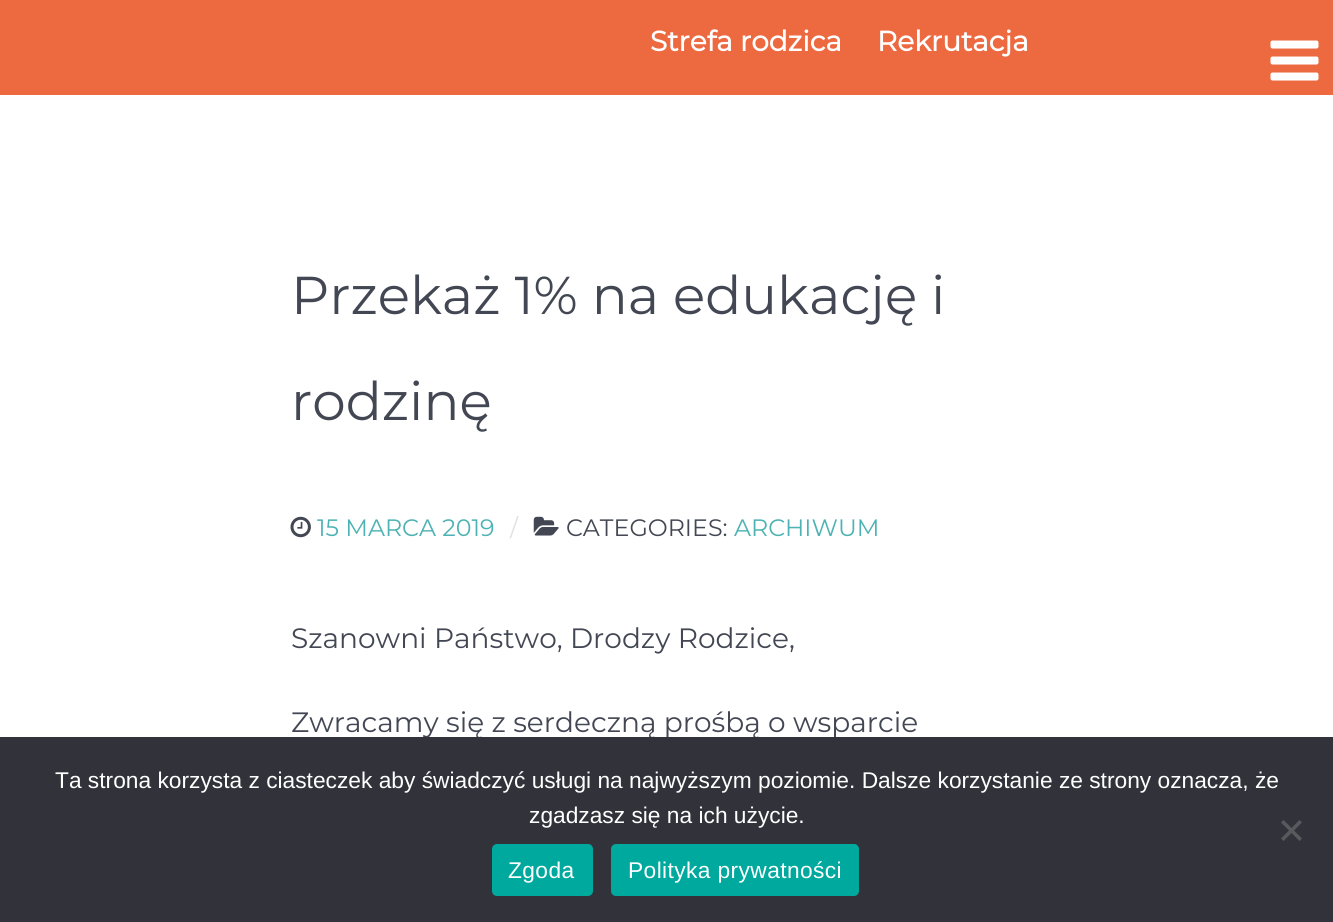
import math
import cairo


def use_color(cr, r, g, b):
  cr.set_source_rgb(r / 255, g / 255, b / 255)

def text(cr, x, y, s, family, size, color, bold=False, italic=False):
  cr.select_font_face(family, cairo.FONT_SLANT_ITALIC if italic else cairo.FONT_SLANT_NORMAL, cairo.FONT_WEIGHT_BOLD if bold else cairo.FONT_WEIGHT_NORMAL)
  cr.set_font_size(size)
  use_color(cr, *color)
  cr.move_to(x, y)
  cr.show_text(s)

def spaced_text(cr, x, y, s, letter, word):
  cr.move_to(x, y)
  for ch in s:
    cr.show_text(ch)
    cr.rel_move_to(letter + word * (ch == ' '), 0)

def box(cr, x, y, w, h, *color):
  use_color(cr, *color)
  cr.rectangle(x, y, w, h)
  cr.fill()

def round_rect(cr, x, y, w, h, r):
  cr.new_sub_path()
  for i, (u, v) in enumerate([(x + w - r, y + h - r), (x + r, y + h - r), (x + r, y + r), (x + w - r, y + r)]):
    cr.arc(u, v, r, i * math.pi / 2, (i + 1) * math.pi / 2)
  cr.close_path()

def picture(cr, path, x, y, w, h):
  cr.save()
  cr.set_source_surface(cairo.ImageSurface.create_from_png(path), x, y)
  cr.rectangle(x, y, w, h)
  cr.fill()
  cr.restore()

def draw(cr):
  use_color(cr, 255, 255, 255)
  cr.paint()
  box(cr, 0, 0, 1333, 95, 237, 106, 65)
  picture(cr, "img_01.png", 1270, 40, 49, 41)
  picture(cr, "img_02.png", 290, 516, 21, 22)
  picture(cr, "img_03.png", 533, 516, 26, 20)
  text(cr, 650, 51, "Strefa rodzica", "Montserrat", 28, (255, 255, 255), bold=True)
  text(cr, 877, 51, "Rekrutacja", "Montserrat", 28, (255, 255, 255), bold=True)
  text(cr, 291, 314, "Przekaż 1% na edukację i", "Montserrat Thin", 53.25, (66, 71, 83))
  text(cr, 291, 420, "rodzinę", "Montserrat Thin", 53.25, (66, 71, 83))
  text(cr, 317, 536, "15 MARCA 2019", "Montserrat Thin", 23.75, (77, 178, 179))
  text(cr, 510, 536, "/", "Montserrat Thin", 23.75, (224, 224, 229))
  text(cr, 566, 536, "CATEGORIES:", "Montserrat Thin", 23.75, (66, 71, 83))
  text(cr, 734, 536, "ARCHIWUM", "Montserrat Thin", 23.75, (77, 178, 179))
  text(cr, 291, 648, "Szanowni Państwo, Drodzy Rodzice,", "Montserrat Thin", 28, (66, 71, 83))
  text(cr, 291, 732, "Zwracamy się z serdeczną prośbą o wsparcie", "Montserrat Thin", 28, (66, 71, 83))
  box(cr, 0, 737, 1333, 185, 50, 50, 58)
  text(cr, 55, 788, "Ta strona korzysta z ciasteczek aby świadczyć usługi na najwyższym poziomie. Dalsze korzystanie ze strony oznacza, że", "Liberation Sans", 22.75, (255, 255, 255))
  text(cr, 529, 823, "zgadzasz się na ich użycie.", "Liberation Sans", 22.75, (255, 255, 255))
  use_color(cr, 89, 89, 93)
  cr.new_path()
  cr.move_to(1299.5, 820)
  cr.line_to(1302, 822.5)
  cr.line_to(1283.5, 841)
  cr.line_to(1281, 838.5)
  cr.close_path()
  cr.fill()
  cr.new_path()
  cr.move_to(1281, 822.5)
  cr.line_to(1283.5, 820)
  cr.line_to(1302, 838.5)
  cr.line_to(1299.5, 841)
  cr.close_path()
  cr.fill()
  use_color(cr, 0, 169, 157)
  round_rect(cr, 492, 844, 101, 52, 5)
  cr.fill()
  use_color(cr, 255, 255, 255)
  spaced_text(cr, 508, 878, "Zgoda", 0.4, 0)
  use_color(cr, 0, 169, 157)
  round_rect(cr, 611, 844, 248, 52, 5)
  cr.fill()
  use_color(cr, 255, 255, 255)
  spaced_text(cr, 628, 878, "Polityka prywatności", 0.4, 0)


surface = cairo.ImageSurface(cairo.FORMAT_RGB24, 1333, 922)
cr = cairo.Context(surface)
options = cairo.FontOptions()
options.set_hint_metrics(cairo.HINT_METRICS_OFF)
options.set_hint_style(cairo.HINT_STYLE_NONE)
cr.set_font_options(options)
cr.set_miter_limit(4)
draw(cr)
surface.write_to_png("out.png")
